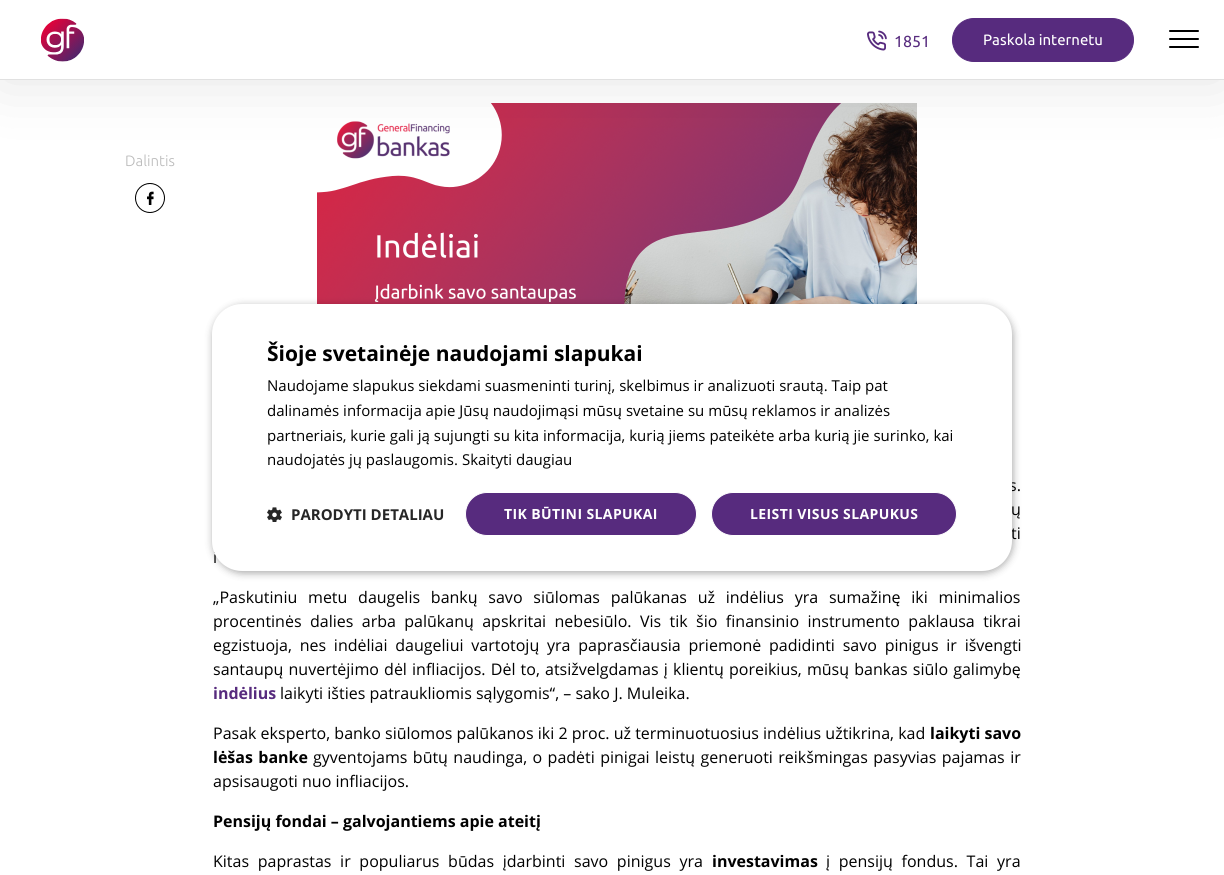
import math
import cairo


def use_color(cr, r, g, b):
  cr.set_source_rgb(r / 255, g / 255, b / 255)

def text(cr, x, y, s, family, size, color, bold=False, italic=False):
  cr.select_font_face(family, cairo.FONT_SLANT_ITALIC if italic else cairo.FONT_SLANT_NORMAL, cairo.FONT_WEIGHT_BOLD if bold else cairo.FONT_WEIGHT_NORMAL)
  cr.set_font_size(size)
  use_color(cr, *color)
  cr.move_to(x, y)
  cr.show_text(s)

def spaced_text(cr, x, y, s, letter, word):
  cr.move_to(x, y)
  for ch in s:
    cr.show_text(ch)
    cr.rel_move_to(letter + word * (ch == ' '), 0)

def box(cr, x, y, w, h, *color):
  use_color(cr, *color)
  cr.rectangle(x, y, w, h)
  cr.fill()

def round_rect(cr, x, y, w, h, r):
  cr.new_sub_path()
  for i, (u, v) in enumerate([(x + w - r, y + h - r), (x + r, y + h - r), (x + r, y + r), (x + w - r, y + r)]):
    cr.arc(u, v, r, i * math.pi / 2, (i + 1) * math.pi / 2)
  cr.close_path()

def shadow(cr, x, y, w, h, r, blur, alpha):
  cr.push_group_with_content(cairo.CONTENT_ALPHA)
  cr.set_operator(cairo.OPERATOR_SOURCE)
  for i in range(15, -16, -2):
    e = blur * i / 6
    if min(w, h) + 2 * e > 0:
      cr.set_source_rgba(0, 0, 0, alpha * math.erfc((i - 1) / 8.5) / 2)
      round_rect(cr, x - e, y - e, w + 2 * e, h + 2 * e, max(0, min(r + e + blur * .6, min(w, h) / 2 + e)))
      cr.fill()
  cr.mask(cr.pop_group())

def picture(cr, path, x, y, w, h):
  cr.save()
  cr.set_source_surface(cairo.ImageSurface.create_from_png(path), x, y)
  cr.rectangle(x, y, w, h)
  cr.fill()
  cr.restore()

def draw(cr):
  use_color(cr, 255, 255, 255)
  cr.paint()
  picture(cr, "img_04.png", 317, 103, 600, 201)
  use_color(cr, 0, 0, 0)
  shadow(cr, 0, 0, 1224, 80, 0, 32.5, 0.11)
  box(cr, 0, 0, 1224, 79, 255, 255, 255)
  box(cr, 0, 79, 1224, 1, 225, 225, 225)
  picture(cr, "img_01.png", 41, 18, 43, 44)
  picture(cr, "img_02.png", 867, 30, 20, 21)
  use_color(cr, 87, 43, 126)
  round_rect(cr, 952.5, 18.5, 181, 43, 21.5)
  cr.fill_preserve()
  cr.set_line_width(1)
  cr.stroke()
  use_color(cr, 0, 0, 0)
  round_rect(cr, 1169, 30, 30, 2, 1)
  cr.fill()
  round_rect(cr, 1169, 38, 30, 2, 1)
  cr.fill()
  round_rect(cr, 1169, 46, 30, 2, 1)
  cr.fill()
  picture(cr, "img_03.png", 135, 183, 30, 30)
  use_color(cr, 0, 0, 0)
  shadow(cr, 213, 306, 800, 267, 30, 4, 0.35)
  text(cr, 894, 47, "1851", "Ubuntu", 16, (87, 43, 126))
  text(cr, 983, 45, "Paskola internetu", "Ubuntu", 15, (255, 255, 255))
  text(cr, 125, 166, "Dalintis", "Ubuntu Light", 15, (186, 186, 186))
  cr.select_font_face("Open Sans")
  cr.set_font_size(16)
  use_color(cr, 0, 0, 0)
  spaced_text(cr, 1009, 491, "s.", 0, 3)
  spaced_text(cr, 1011, 515, "ų", 0, 2)
  spaced_text(cr, 1011, 539, "ti", 0, 1)
  text(cr, 213, 563, "i", "Open Sans", 16, (0, 0, 0))
  spaced_text(cr, 213, 603, "„Paskutiniu metu daugelis bankų savo siūlomas palūkanas už indėlius yra sumažinę iki minimalios", 0, 6.6)
  spaced_text(cr, 213, 627, "procentinės dalies arba palūkanų apskritai nebesiūlo. Vis tik šio finansinio instrumento paklausa tikrai", 0, 4.25)
  spaced_text(cr, 213, 651, "egzistuoja, nes indėliai daugeliui vartotojų yra paprasčiausia priemonė padidinti savo pinigus ir išvengti", 0, 3.6)
  spaced_text(cr, 213, 675, "santaupų nuvertėjimo dėl infliacijos. Dėl to, atsižvelgdamas į klientų poreikius, mūsų bankas siūlo galimybę", 0, 1)
  text(cr, 213, 699, "indėlius", "Open Sans", 16, (87, 43, 126), bold=True)
  text(cr, 280, 699, "laikyti išties patraukliomis sąlygomis“, – sako J. Muleika.", "Open Sans", 16, (0, 0, 0))
  text(cr, 213, 739, "Pasak eksperto, banko siūlomos palūkanos iki 2 proc. už terminuotuosius indėlius užtikrina, kad", "Open Sans", 16, (0, 0, 0))
  text(cr, 930, 739, "laikyti savo", "Open Sans", 16, (0, 0, 0), bold=True)
  spaced_text(cr, 213, 763, "lėšas banke", 0, 1.25)
  cr.select_font_face("Open Sans")
  spaced_text(cr, 313, 763, "gyventojams būtų naudinga, o padėti pinigai leistų generuoti reikšmingas pasyvias pajamas ir", 0, 1.25)
  text(cr, 213, 787, "apsisaugoti nuo infliacijos.", "Open Sans", 16, (0, 0, 0))
  text(cr, 213, 827, "Pensijų fondai – galvojantiems apie ateitį", "Open Sans", 16, (0, 0, 0), bold=True)
  cr.select_font_face("Open Sans")
  spaced_text(cr, 213, 867, "Kitas paprastas ir populiarus būdas įdarbinti savo pinigus yra", 0, 4.5)
  text(cr, 712, 867, "investavimas", "Open Sans", 16, (0, 0, 0), bold=True)
  cr.select_font_face("Open Sans")
  spaced_text(cr, 826, 867, "į pensijų fondus. Tai yra", 0, 4.5)
  use_color(cr, 255, 255, 255)
  round_rect(cr, 212, 304, 800, 267, 30)
  cr.fill()
  text(cr, 267, 361, "Šioje svetainėje naudojami slapukai", "Open Sans", 21, (0, 0, 0), bold=True)
  text(cr, 267, 391, "Naudojame slapukus siekdami suasmeninti turinį, skelbimus ir analizuoti srautą. Taip pat", "Open Sans", 15, (0, 0, 0))
  text(cr, 267, 416, "dalinamės informacija apie Jūsų naudojimąsi mūsų svetaine su mūsų reklamos ir analizės", "Open Sans", 15, (0, 0, 0))
  text(cr, 267, 441, "partneriais, kurie gali ją sujungti su kita informacija, kurią jiems pateikėte arba kurią jie surinko, kai", "Open Sans", 15, (0, 0, 0))
  text(cr, 267, 465, "naudojatės jų paslaugomis. Skaityti daugiau", "Open Sans", 15, (0, 0, 0))
  picture(cr, "img_05.png", 267, 507, 15, 15)
  text(cr, 291, 520, "PARODYTI DETALIAU", "Open Sans", 15, (38, 38, 38), bold=True)
  use_color(cr, 87, 43, 126)
  round_rect(cr, 465.5, 492.5, 231, 43, 21.5)
  cr.fill_preserve()
  use_color(cr, 255, 255, 255)
  cr.stroke()
  cr.set_font_size(14)
  spaced_text(cr, 504, 519, "TIK BŪTINI SLAPUKAI", 0.4, 0)
  use_color(cr, 87, 43, 126)
  round_rect(cr, 711.5, 492.5, 245, 43, 21.5)
  cr.fill_preserve()
  use_color(cr, 255, 255, 255)
  cr.stroke()
  spaced_text(cr, 750, 519, "LEISTI VISUS SLAPUKUS", 0.4, 0)


surface = cairo.ImageSurface(cairo.FORMAT_RGB24, 1224, 875)
cr = cairo.Context(surface)
options = cairo.FontOptions()
options.set_hint_metrics(cairo.HINT_METRICS_OFF)
options.set_hint_style(cairo.HINT_STYLE_NONE)
cr.set_font_options(options)
cr.set_miter_limit(4)
draw(cr)
surface.write_to_png("out.png")
